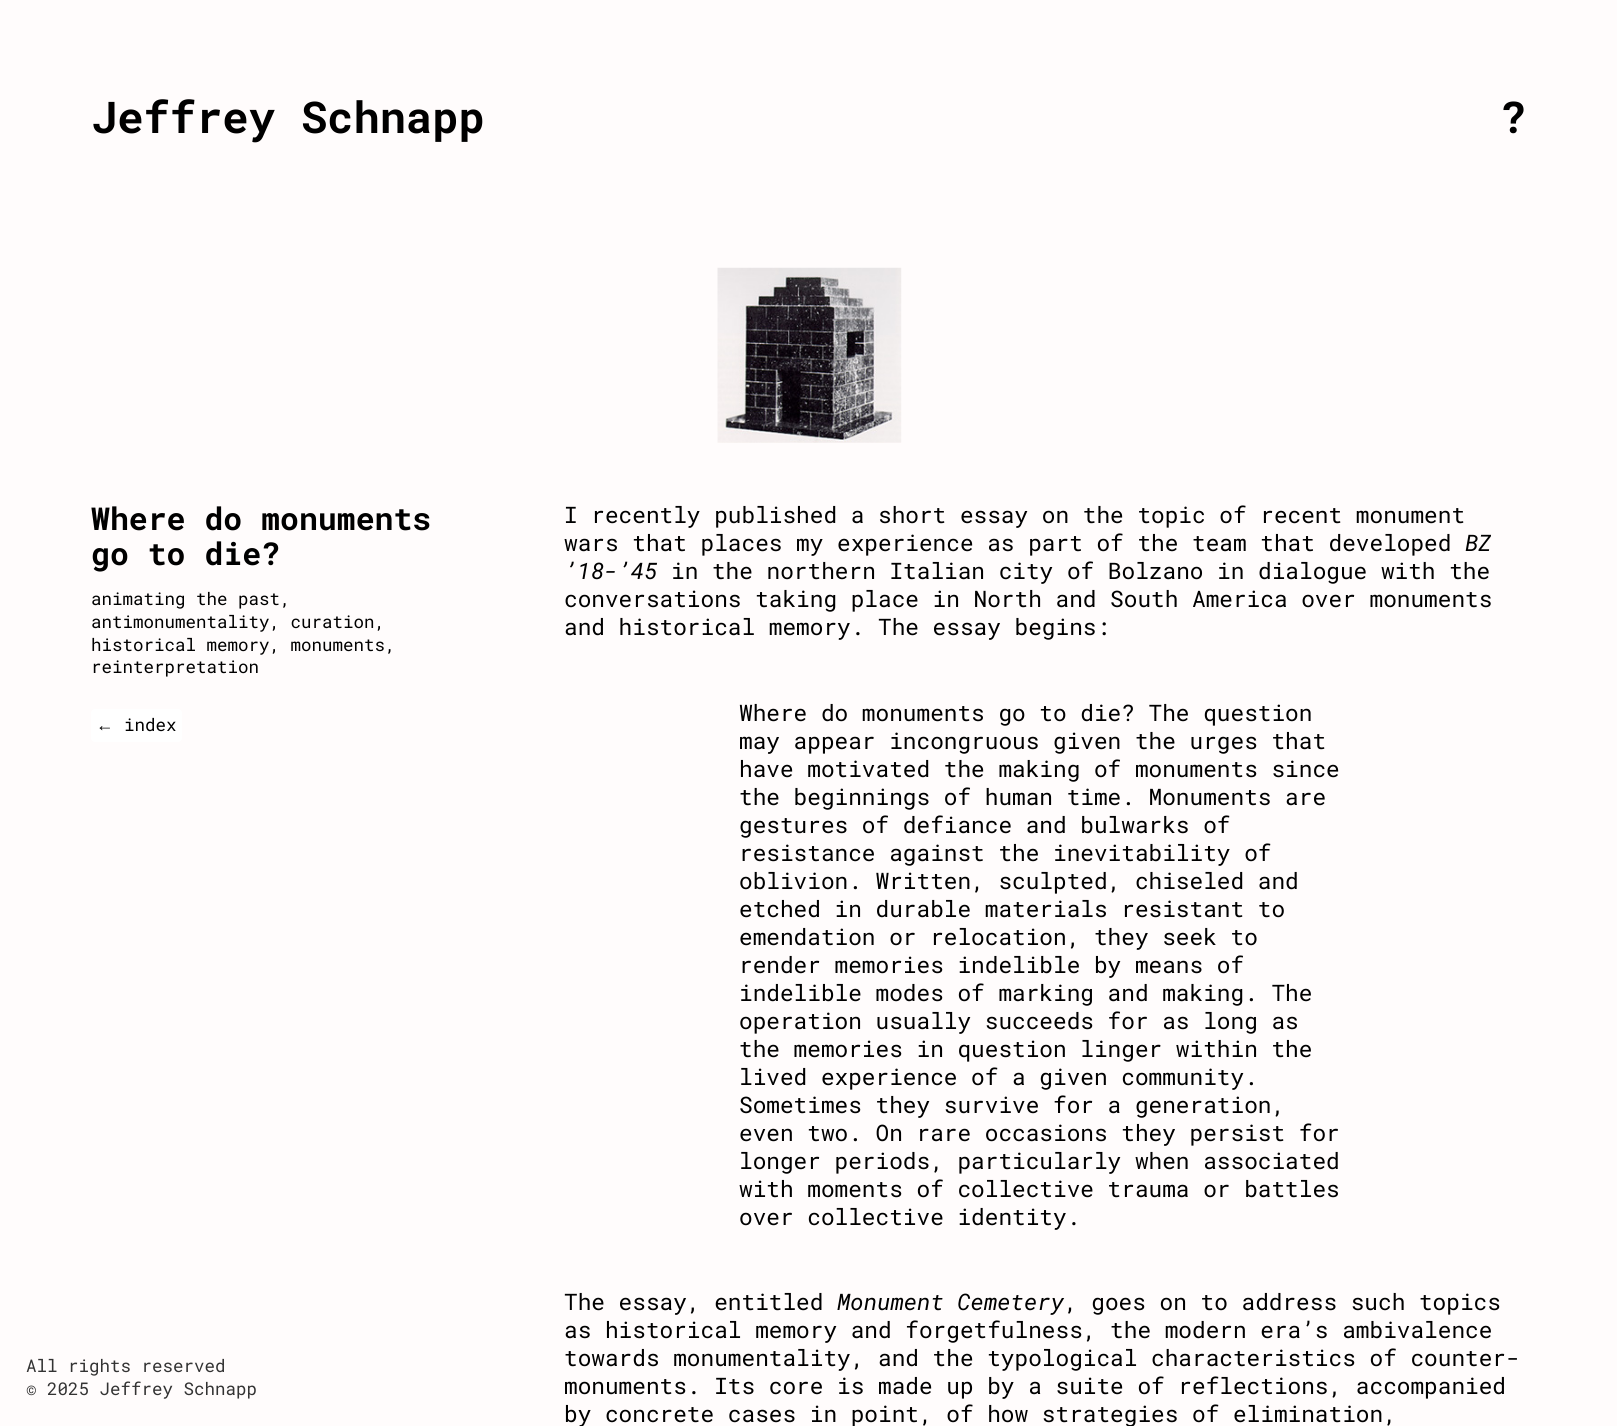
import math
import cairo


def use_color(cr, r, g, b):
  cr.set_source_rgb(r / 255, g / 255, b / 255)

def text(cr, x, y, s, family, size, color, bold=False, italic=False):
  cr.select_font_face(family, cairo.FONT_SLANT_ITALIC if italic else cairo.FONT_SLANT_NORMAL, cairo.FONT_WEIGHT_BOLD if bold else cairo.FONT_WEIGHT_NORMAL)
  cr.set_font_size(size)
  use_color(cr, *color)
  cr.move_to(x, y)
  cr.show_text(s)

def round_rect(cr, x, y, w, h, r):
  cr.new_sub_path()
  for i, (u, v) in enumerate([(x + w - r, y + h - r), (x + r, y + h - r), (x + r, y + r), (x + w - r, y + r)]):
    cr.arc(u, v, r, i * math.pi / 2, (i + 1) * math.pi / 2)
  cr.close_path()

def picture(cr, path, x, y, w, h):
  cr.save()
  cr.set_source_surface(cairo.ImageSurface.create_from_png(path), x, y)
  cr.rectangle(x, y, w, h)
  cr.fill()
  cr.restore()

def draw(cr):
  use_color(cr, 255, 252, 252)
  cr.paint()
  use_color(cr, 255, 255, 255)
  round_rect(cr, 91, 709, 91, 33, 4)
  cr.fill()
  picture(cr, "img_01.png", 717, 267, 185, 176)
  text(cr, 91, 133, "Jeffrey Schnapp", "Roboto Mono", 43.75, (0, 0, 0), bold=True)
  text(cr, 1500, 133, "?", "Roboto Mono", 43.75, (0, 0, 0), bold=True)
  text(cr, 91, 530, "Where do monuments", "Roboto Mono", 31.5, (0, 0, 0), bold=True)
  text(cr, 91, 565, "go to die?", "Roboto Mono", 31.5, (0, 0, 0), bold=True)
  text(cr, 91, 605, "animating the past,", "Roboto Mono", 17.5, (0, 0, 0))
  text(cr, 91, 628, "antimonumentality, curation,", "Roboto Mono", 17.5, (0, 0, 0))
  text(cr, 91, 651, "historical memory, monuments,", "Roboto Mono", 17.5, (0, 0, 0))
  text(cr, 91, 673, "reinterpretation", "Roboto Mono", 17.5, (0, 0, 0))
  text(cr, 96, 731, "←", "Liberation Serif", 17.5, (0, 0, 0))
  text(cr, 124, 731, "index", "Roboto Mono", 17.5, (0, 0, 0))
  text(cr, 564, 523, "I recently published a short essay on the topic of recent monument", "Roboto Mono", 22.75, (0, 0, 0))
  text(cr, 564, 551, "wars that places my experience as part of the team that developed", "Roboto Mono", 22.75, (0, 0, 0))
  text(cr, 1465, 551, "BZ", "Roboto Mono", 22.75, (0, 0, 0), italic=True)
  text(cr, 564, 579, "’18-’45", "Roboto Mono", 22.75, (0, 0, 0), italic=True)
  text(cr, 671, 579, "in the northern Italian city of Bolzano in dialogue with the", "Roboto Mono", 22.75, (0, 0, 0))
  text(cr, 564, 607, "conversations taking place in North and South America over monuments", "Roboto Mono", 22.75, (0, 0, 0))
  text(cr, 564, 635, "and historical memory. The essay begins:", "Roboto Mono", 22.75, (0, 0, 0))
  text(cr, 739, 721, "Where do monuments go to die? The question", "Roboto Mono", 22.75, (0, 0, 0))
  text(cr, 739, 749, "may appear incongruous given the urges that", "Roboto Mono", 22.75, (0, 0, 0))
  text(cr, 739, 777, "have motivated the making of monuments since", "Roboto Mono", 22.75, (0, 0, 0))
  text(cr, 739, 805, "the beginnings of human time. Monuments are", "Roboto Mono", 22.75, (0, 0, 0))
  text(cr, 739, 833, "gestures of defiance and bulwarks of", "Roboto Mono", 22.75, (0, 0, 0))
  text(cr, 739, 861, "resistance against the inevitability of", "Roboto Mono", 22.75, (0, 0, 0))
  text(cr, 739, 889, "oblivion. Written, sculpted, chiseled and", "Roboto Mono", 22.75, (0, 0, 0))
  text(cr, 739, 917, "etched in durable materials resistant to", "Roboto Mono", 22.75, (0, 0, 0))
  text(cr, 739, 945, "emendation or relocation, they seek to", "Roboto Mono", 22.75, (0, 0, 0))
  text(cr, 739, 973, "render memories indelible by means of", "Roboto Mono", 22.75, (0, 0, 0))
  text(cr, 739, 1001, "indelible modes of marking and making. The", "Roboto Mono", 22.75, (0, 0, 0))
  text(cr, 739, 1029, "operation usually succeeds for as long as", "Roboto Mono", 22.75, (0, 0, 0))
  text(cr, 739, 1057, "the memories in question linger within the", "Roboto Mono", 22.75, (0, 0, 0))
  text(cr, 739, 1085, "lived experience of a given community.", "Roboto Mono", 22.75, (0, 0, 0))
  text(cr, 739, 1113, "Sometimes they survive for a generation,", "Roboto Mono", 22.75, (0, 0, 0))
  text(cr, 739, 1141, "even two. On rare occasions they persist for", "Roboto Mono", 22.75, (0, 0, 0))
  text(cr, 739, 1169, "longer periods, particularly when associated", "Roboto Mono", 22.75, (0, 0, 0))
  text(cr, 739, 1197, "with moments of collective trauma or battles", "Roboto Mono", 22.75, (0, 0, 0))
  text(cr, 739, 1225, "over collective identity.", "Roboto Mono", 22.75, (0, 0, 0))
  text(cr, 564, 1310, "The essay, entitled", "Roboto Mono", 22.75, (0, 0, 0))
  text(cr, 837, 1310, "Monument Cemetery", "Roboto Mono", 22.75, (0, 0, 0), italic=True)
  text(cr, 1064, 1310, ", goes on to address such topics", "Roboto Mono", 22.75, (0, 0, 0))
  text(cr, 564, 1338, "as historical memory and forgetfulness, the modern era’s ambivalence", "Roboto Mono", 22.75, (0, 0, 0))
  text(cr, 564, 1366, "towards monumentality, and the typological characteristics of counter-", "Roboto Mono", 22.75, (0, 0, 0))
  text(cr, 564, 1394, "monuments. Its core is made up by a suite of reflections, accompanied", "Roboto Mono", 22.75, (0, 0, 0))
  text(cr, 564, 1422, "by concrete cases in point, of how strategies of elimination,", "Roboto Mono", 22.75, (0, 0, 0))
  text(cr, 26, 1372, "All rights reserved", "Roboto Mono", 17.5, (51, 51, 51))
  text(cr, 26, 1395, "© 2025 Jeffrey Schnapp", "Roboto Mono", 17.5, (51, 51, 51))


surface = cairo.ImageSurface(cairo.FORMAT_RGB24, 1617, 1426)
cr = cairo.Context(surface)
options = cairo.FontOptions()
options.set_hint_metrics(cairo.HINT_METRICS_OFF)
options.set_hint_style(cairo.HINT_STYLE_NONE)
cr.set_font_options(options)
cr.set_miter_limit(4)
draw(cr)
surface.write_to_png("out.png")
